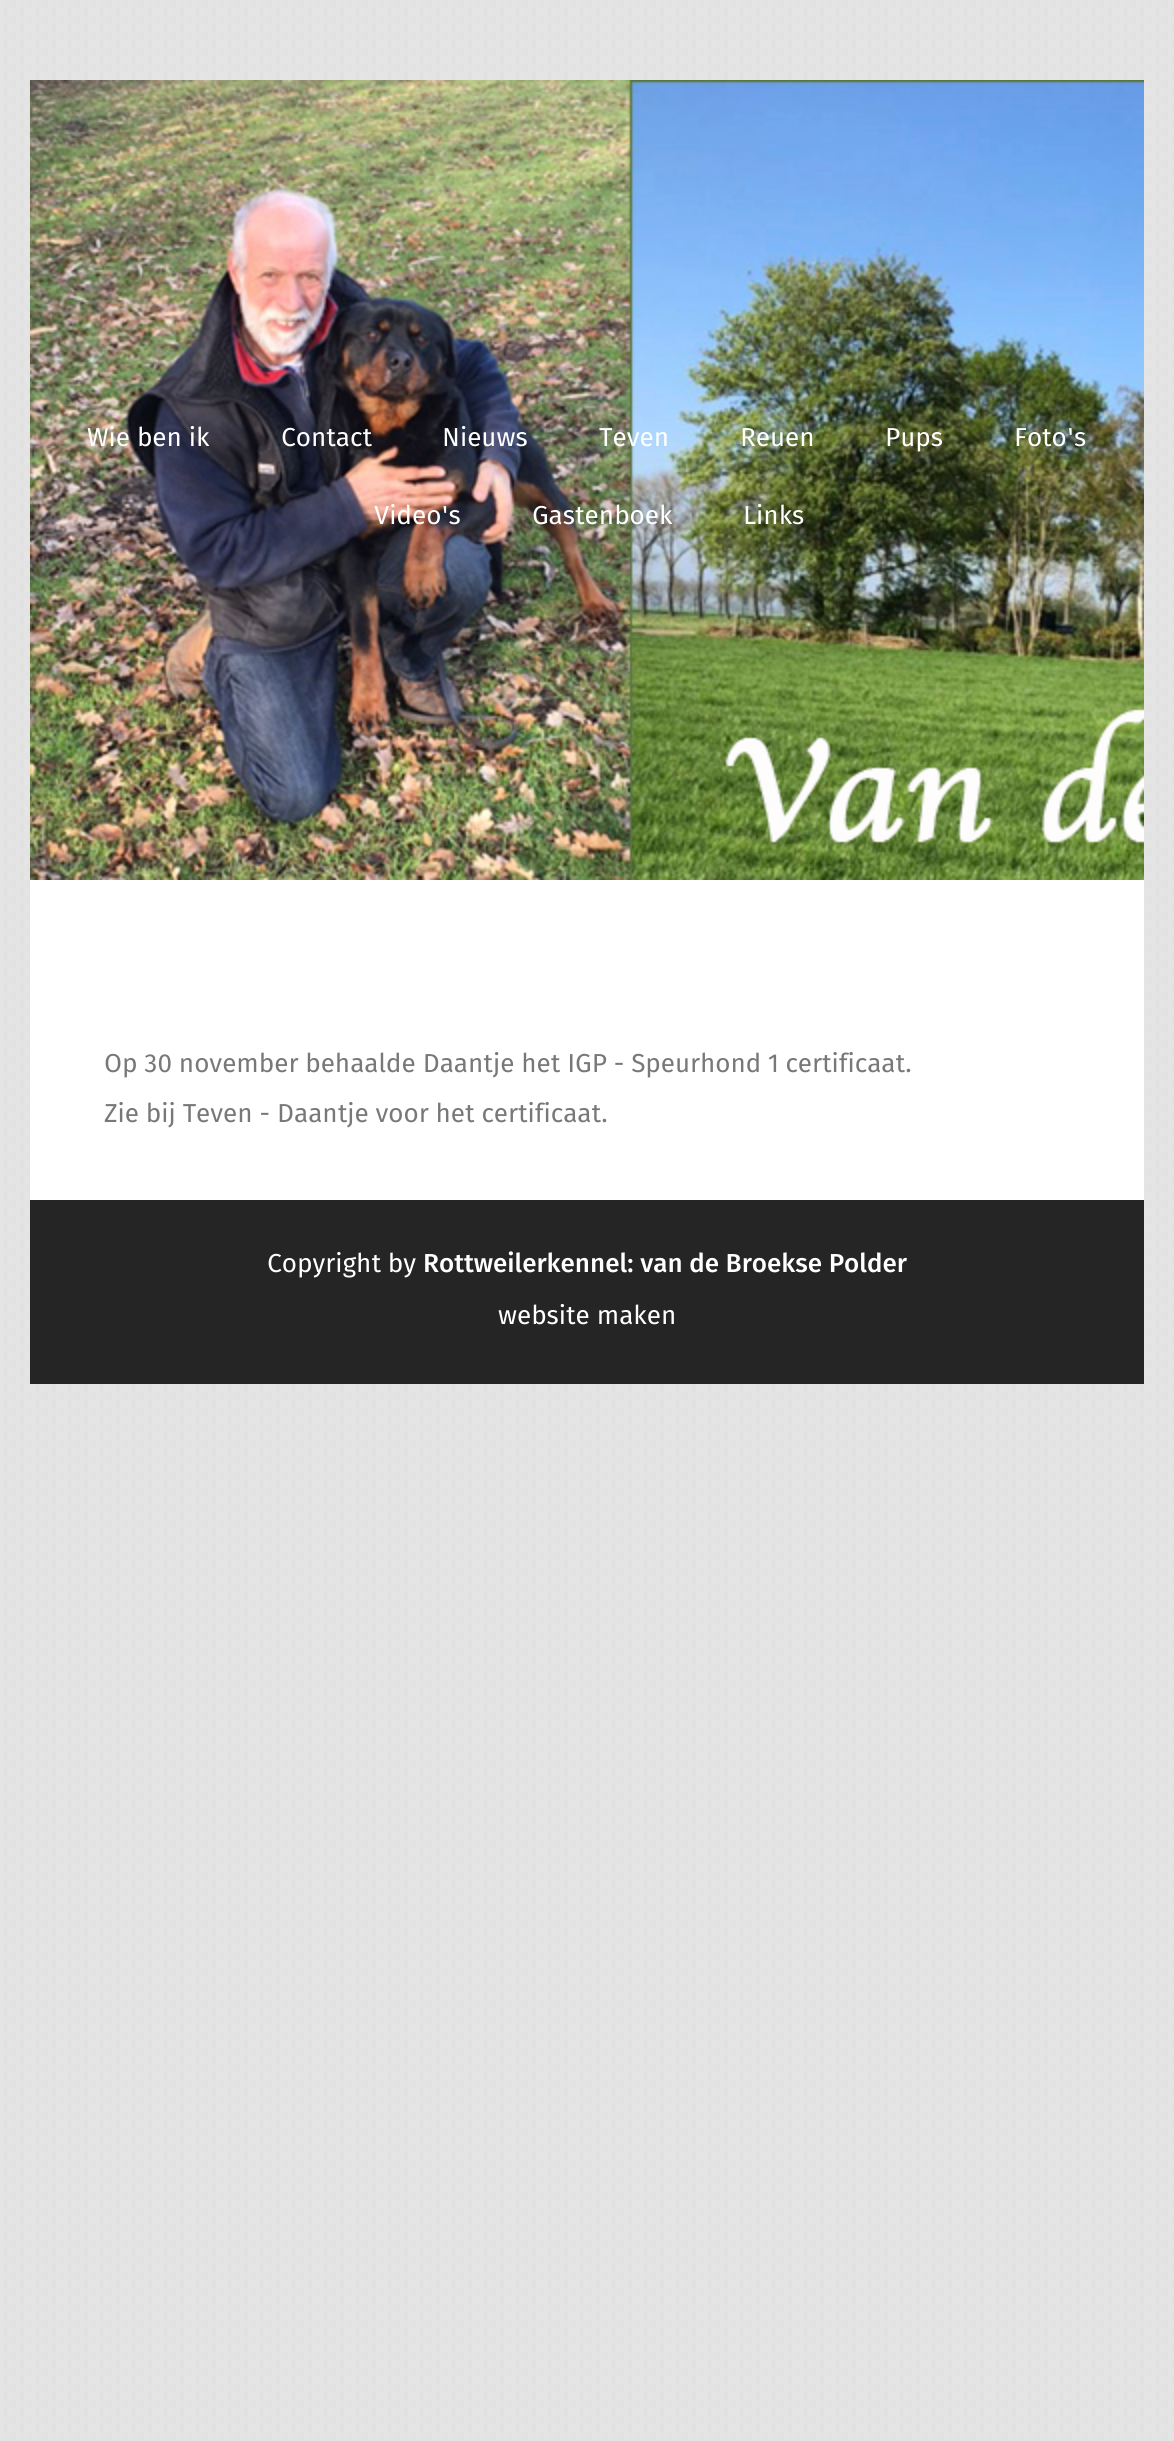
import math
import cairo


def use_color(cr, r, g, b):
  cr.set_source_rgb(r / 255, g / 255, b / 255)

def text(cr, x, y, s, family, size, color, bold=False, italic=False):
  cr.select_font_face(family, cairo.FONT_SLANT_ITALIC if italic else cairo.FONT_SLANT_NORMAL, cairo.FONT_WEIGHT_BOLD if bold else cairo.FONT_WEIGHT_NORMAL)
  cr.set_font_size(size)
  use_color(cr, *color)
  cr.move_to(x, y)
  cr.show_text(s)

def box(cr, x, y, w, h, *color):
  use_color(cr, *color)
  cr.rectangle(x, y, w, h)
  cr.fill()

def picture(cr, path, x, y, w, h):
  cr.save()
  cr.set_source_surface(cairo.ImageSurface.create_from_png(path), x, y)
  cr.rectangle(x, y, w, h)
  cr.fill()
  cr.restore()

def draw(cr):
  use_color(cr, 255, 255, 255)
  cr.paint()
  picture(cr, "img_01.png", 0, 0, 1174, 2441)
  picture(cr, "img_02.png", 30, 80, 1114, 800)
  box(cr, 30, 880, 1114, 320, 255, 255, 255)
  box(cr, 30, 1200, 1114, 184, 37, 37, 37)
  text(cr, 87, 446, "Wie ben ik", "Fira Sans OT", 26, (255, 255, 255))
  text(cr, 281, 446, "Contact", "Fira Sans OT", 26, (255, 255, 255))
  text(cr, 442, 446, "Nieuws", "Fira Sans OT", 26, (255, 255, 255))
  text(cr, 599, 446, "Teven", "Fira Sans OT", 26, (255, 255, 255))
  text(cr, 740, 446, "Reuen", "Fira Sans OT", 26, (255, 255, 255))
  text(cr, 885, 446, "Pups", "Fira Sans OT", 26, (255, 255, 255))
  text(cr, 1014, 446, "Foto's", "Fira Sans OT", 26, (255, 255, 255))
  text(cr, 374, 524, "Video's", "Fira Sans OT", 26, (255, 255, 255))
  text(cr, 532, 524, "Gastenboek", "Fira Sans OT", 26, (255, 255, 255))
  text(cr, 743, 524, "Links", "Fira Sans OT", 26, (255, 255, 255))
  text(cr, 104, 1072, "Op 30 november behaalde Daantje het IGP - Speurhond 1 certificaat.", "Fira Sans OT", 26, (120, 120, 120))
  text(cr, 104, 1122, "Zie bij Teven - Daantje voor het certificaat.", "Fira Sans OT", 26, (120, 120, 120))
  text(cr, 267, 1272, "Copyright by", "Fira Sans OT", 26, (255, 255, 255))
  text(cr, 423, 1272, "Rottweilerkennel: van de Broekse Polder", "Fira Sans OT Medium", 26, (255, 255, 255))
  text(cr, 498, 1324, "website maken", "Fira Sans OT", 26, (255, 255, 255))


surface = cairo.ImageSurface(cairo.FORMAT_RGB24, 1174, 2441)
cr = cairo.Context(surface)
options = cairo.FontOptions()
options.set_hint_metrics(cairo.HINT_METRICS_OFF)
options.set_hint_style(cairo.HINT_STYLE_NONE)
cr.set_font_options(options)
cr.set_miter_limit(4)
draw(cr)
surface.write_to_png("out.png")
